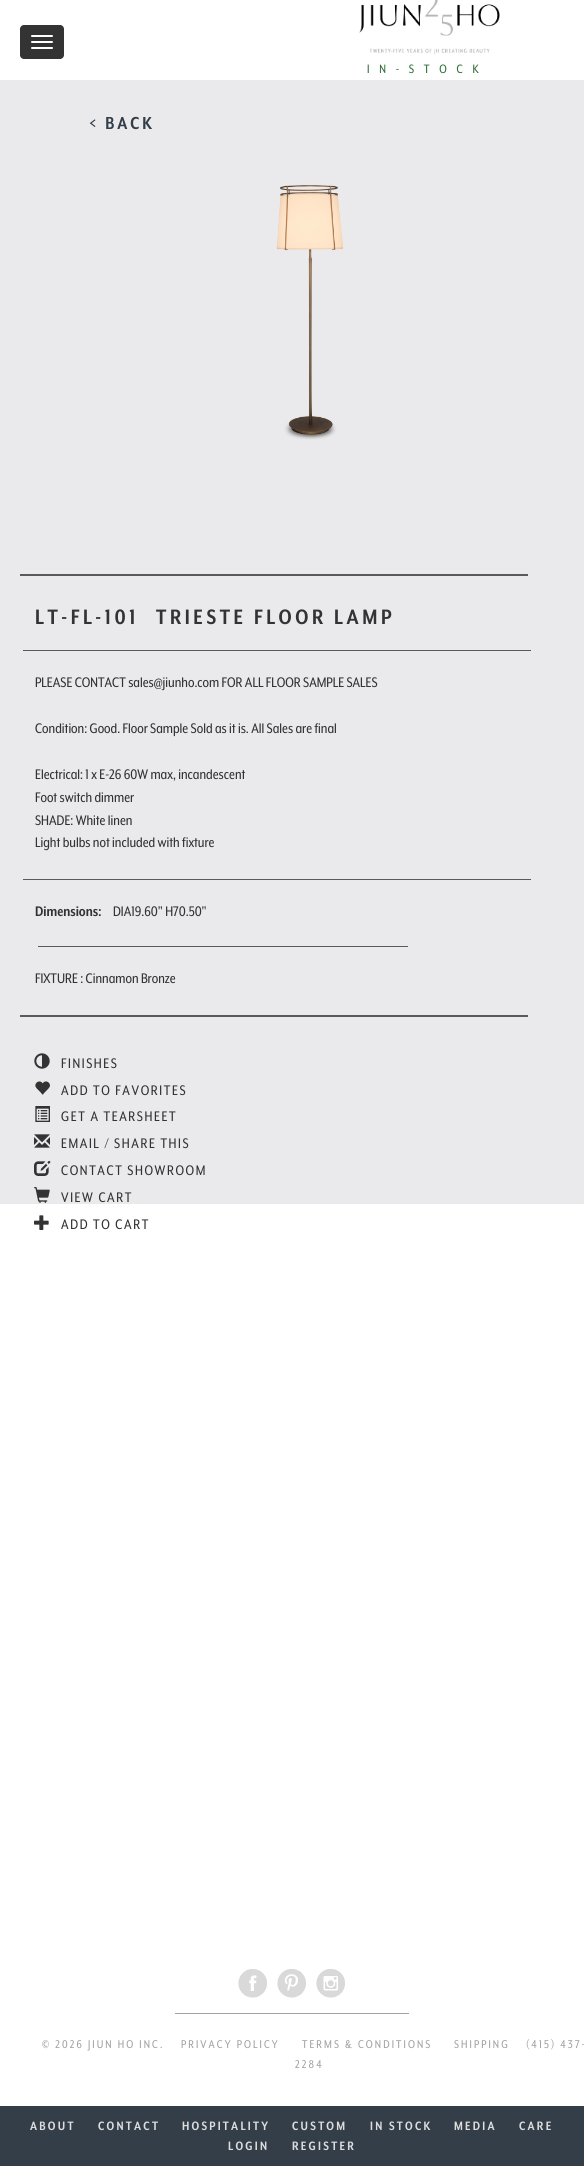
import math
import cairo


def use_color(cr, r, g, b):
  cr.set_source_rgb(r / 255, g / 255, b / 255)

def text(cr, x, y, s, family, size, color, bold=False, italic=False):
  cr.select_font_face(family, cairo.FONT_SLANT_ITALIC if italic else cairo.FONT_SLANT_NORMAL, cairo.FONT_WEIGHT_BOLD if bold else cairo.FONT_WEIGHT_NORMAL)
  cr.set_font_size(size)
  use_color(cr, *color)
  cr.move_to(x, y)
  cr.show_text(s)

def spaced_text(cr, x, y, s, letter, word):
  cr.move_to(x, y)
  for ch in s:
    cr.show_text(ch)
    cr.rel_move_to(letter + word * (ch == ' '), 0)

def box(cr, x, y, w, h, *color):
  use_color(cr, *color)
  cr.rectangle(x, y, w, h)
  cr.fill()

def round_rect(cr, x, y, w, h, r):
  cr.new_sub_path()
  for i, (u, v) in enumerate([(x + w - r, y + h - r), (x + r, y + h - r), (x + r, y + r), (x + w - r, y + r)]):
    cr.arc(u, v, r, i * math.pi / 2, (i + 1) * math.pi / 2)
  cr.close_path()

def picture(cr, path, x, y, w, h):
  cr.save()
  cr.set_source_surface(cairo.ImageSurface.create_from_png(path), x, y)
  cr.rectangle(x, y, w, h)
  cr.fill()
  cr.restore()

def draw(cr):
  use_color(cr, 255, 255, 255)
  cr.paint()
  use_color(cr, 51, 51, 51)
  round_rect(cr, 20, 25, 44, 34, 4)
  cr.fill()
  use_color(cr, 255, 255, 255)
  round_rect(cr, 31, 35, 22, 2, 1)
  cr.fill()
  round_rect(cr, 31, 41, 22, 2, 1)
  cr.fill()
  round_rect(cr, 31, 47, 22, 2, 1)
  cr.fill()
  picture(cr, "img_01.png", 359, 0, 141, 54)
  box(cr, 0, 80, 584, 1124, 234, 234, 236)
  picture(cr, "img_02.png", 276, 185, 67, 255)
  box(cr, 20, 574, 508, 2, 90, 90, 90)
  box(cr, 23, 650, 508, 1, 90, 90, 90)
  box(cr, 23, 879, 508, 1, 90, 90, 90)
  box(cr, 38, 946, 370, 1, 90, 90, 90)
  box(cr, 20, 1015, 508, 2, 90, 90, 90)
  picture(cr, "img_03.png", 34, 1053, 16, 16)
  picture(cr, "img_04.png", 35, 1081, 15, 14)
  picture(cr, "img_05.png", 35, 1106, 15, 16)
  picture(cr, "img_06.png", 34, 1134, 16, 14)
  picture(cr, "img_07.png", 34, 1160, 17, 16)
  picture(cr, "img_08.png", 34, 1187, 16, 16)
  picture(cr, "img_09.png", 34, 1215, 15, 15)
  picture(cr, "img_10.png", 238, 1969, 29, 29)
  picture(cr, "img_11.png", 277, 1969, 29, 29)
  picture(cr, "img_12.png", 316, 1969, 29, 29)
  box(cr, 175, 2013, 234, 1, 162, 162, 162)
  box(cr, 0, 2106, 584, 60, 52, 62, 72)
  cr.select_font_face("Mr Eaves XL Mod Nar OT")
  cr.set_font_size(14)
  use_color(cr, 49, 110, 55)
  spaced_text(cr, 367, 73, "IN-STOCK", 9.75, 0)
  cr.select_font_face("Mr Eaves XL Mod Nar OT", cairo.FONT_SLANT_NORMAL, cairo.FONT_WEIGHT_BOLD)
  cr.set_font_size(20)
  use_color(cr, 51, 62, 72)
  spaced_text(cr, 89, 129, "< BACK", 3, 0)
  cr.set_font_size(24)
  use_color(cr, 51, 51, 51)
  spaced_text(cr, 35, 624, "LT-FL-101", 3.6, 0)
  spaced_text(cr, 156, 624, "TRIESTE FLOOR LAMP", 3.6, 0)
  text(cr, 35, 687, "PLEASE CONTACT sales@jiunho.com FOR ALL FLOOR SAMPLE SALES", "Mr Eaves XL Mod Nar OT", 16, (51, 51, 51))
  text(cr, 35, 733, "Condition: Good. Floor Sample Sold as it is. All Sales are final", "Mr Eaves XL Mod Nar OT", 16, (51, 51, 51))
  text(cr, 35, 779, "Electrical: 1 x E-26 60W max, incandescent", "Mr Eaves XL Mod Nar OT", 16, (51, 51, 51))
  text(cr, 35, 802, "Foot switch dimmer", "Mr Eaves XL Mod Nar OT", 16, (51, 51, 51))
  text(cr, 35, 825, "SHADE: White linen", "Mr Eaves XL Mod Nar OT", 16, (51, 51, 51))
  text(cr, 35, 847, "Light bulbs not included with fixture", "Mr Eaves XL Mod Nar OT", 16, (51, 51, 51))
  text(cr, 35, 916, "Dimensions:", "Mr Eaves XL Mod Nar OT", 16, (51, 51, 51), bold=True)
  text(cr, 113, 916, "DIA19.60\" H70.50\"", "Mr Eaves XL Mod Nar OT", 16, (51, 51, 51))
  text(cr, 35, 983, "FIXTURE : Cinnamon Bronze", "Mr Eaves XL Mod Nar OT", 16, (51, 51, 51))
  spaced_text(cr, 61, 1068, "FINISHES", 1.6, 0)
  spaced_text(cr, 61, 1095, "ADD TO FAVORITES", 1.6, 0)
  spaced_text(cr, 61, 1121, "GET A TEARSHEET", 1.6, 0)
  spaced_text(cr, 61, 1148, "EMAIL / SHARE THIS", 1.6, 0)
  spaced_text(cr, 61, 1175, "CONTACT SHOWROOM", 1.6, 0)
  spaced_text(cr, 61, 1202, "VIEW CART", 1.6, 0)
  spaced_text(cr, 61, 1229, "ADD TO CART", 1.6, 0)
  cr.set_font_size(13)
  use_color(cr, 162, 162, 162)
  spaced_text(cr, 42, 2048, "© 2026 JIUN HO INC.", 2.1, 0)
  spaced_text(cr, 181, 2048, "PRIVACY POLICY", 2.1, 0)
  spaced_text(cr, 302, 2048, "TERMS & CONDITIONS", 2.1, 0)
  spaced_text(cr, 454, 2048, "SHIPPING", 2.1, 0)
  spaced_text(cr, 526, 2048, "(415) 437-", 2.1, 0)
  spaced_text(cr, 295, 2068, "2284", 2.1, 0)
  cr.select_font_face("Mr Eaves XL Mod Nar OT", cairo.FONT_SLANT_NORMAL, cairo.FONT_WEIGHT_BOLD)
  cr.set_font_size(14)
  use_color(cr, 221, 221, 221)
  spaced_text(cr, 30, 2130, "ABOUT", 2.25, 0)
  spaced_text(cr, 98, 2130, "CONTACT", 2.25, 0)
  spaced_text(cr, 182, 2130, "HOSPITALITY", 2.25, 0)
  spaced_text(cr, 292, 2130, "CUSTOM", 2.25, 0)
  spaced_text(cr, 370, 2130, "IN STOCK", 2.25, 0)
  spaced_text(cr, 454, 2130, "MEDIA", 2.25, 0)
  spaced_text(cr, 519, 2130, "CARE", 2.25, 0)
  spaced_text(cr, 228, 2150, "LOGIN", 2.25, 0)
  spaced_text(cr, 292, 2150, "REGISTER", 2.25, 0)


surface = cairo.ImageSurface(cairo.FORMAT_RGB24, 584, 2166)
cr = cairo.Context(surface)
options = cairo.FontOptions()
options.set_hint_metrics(cairo.HINT_METRICS_OFF)
options.set_hint_style(cairo.HINT_STYLE_NONE)
cr.set_font_options(options)
cr.set_miter_limit(4)
draw(cr)
surface.write_to_png("out.png")
